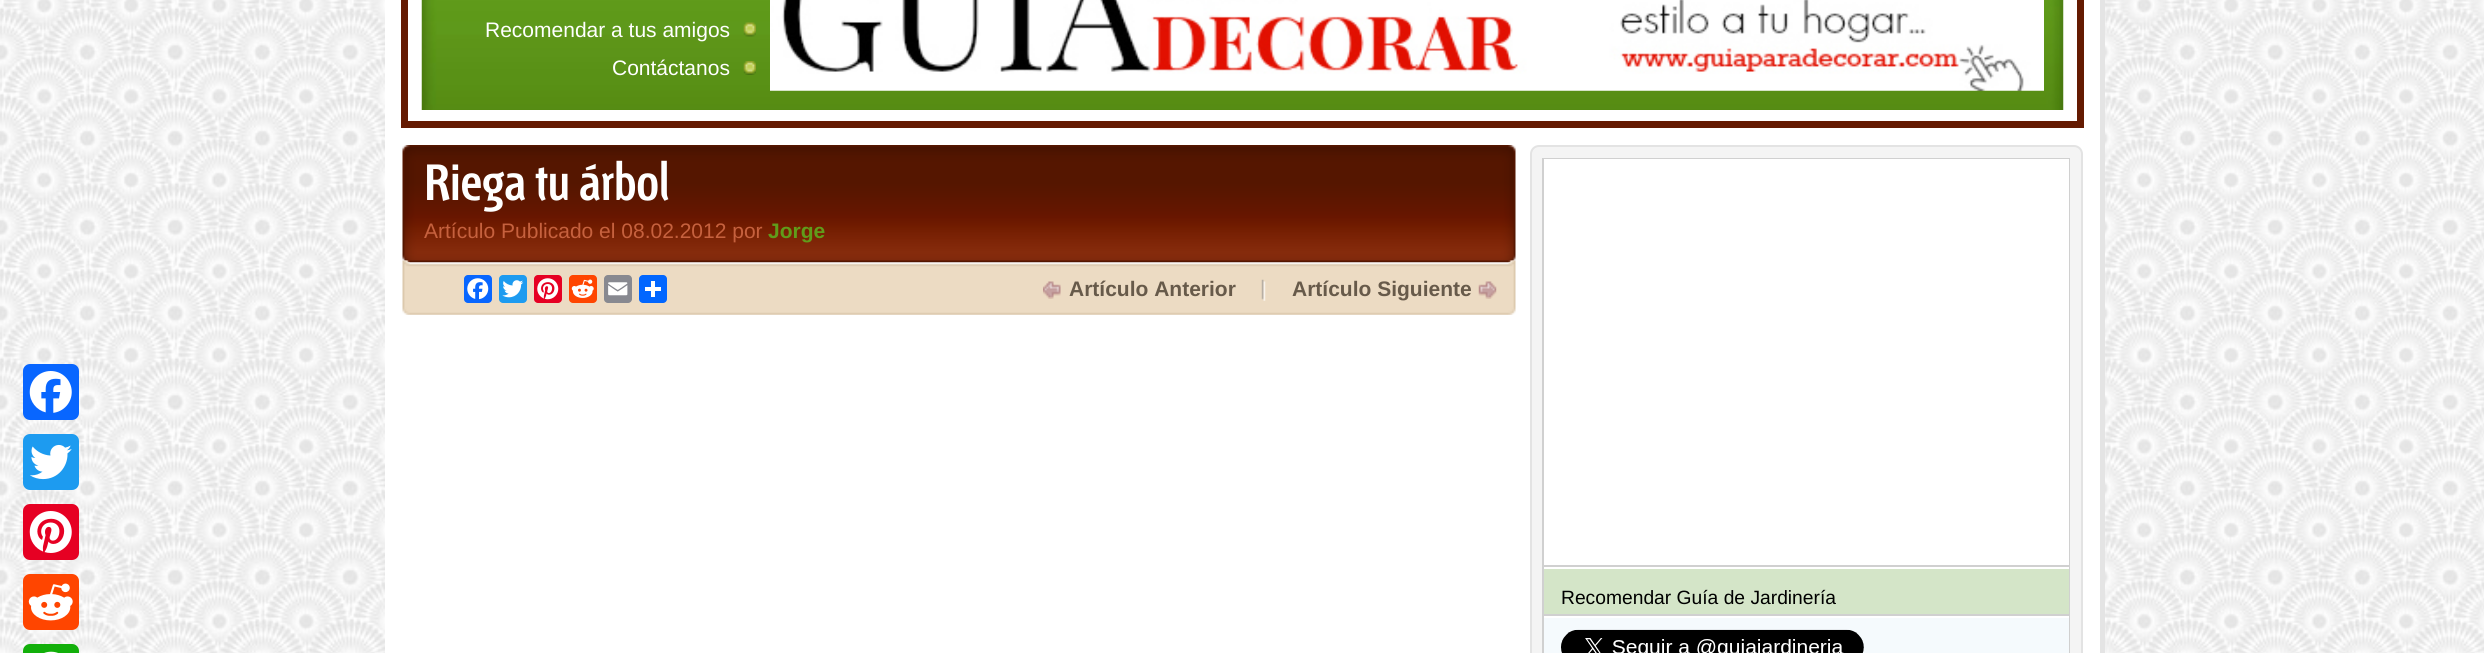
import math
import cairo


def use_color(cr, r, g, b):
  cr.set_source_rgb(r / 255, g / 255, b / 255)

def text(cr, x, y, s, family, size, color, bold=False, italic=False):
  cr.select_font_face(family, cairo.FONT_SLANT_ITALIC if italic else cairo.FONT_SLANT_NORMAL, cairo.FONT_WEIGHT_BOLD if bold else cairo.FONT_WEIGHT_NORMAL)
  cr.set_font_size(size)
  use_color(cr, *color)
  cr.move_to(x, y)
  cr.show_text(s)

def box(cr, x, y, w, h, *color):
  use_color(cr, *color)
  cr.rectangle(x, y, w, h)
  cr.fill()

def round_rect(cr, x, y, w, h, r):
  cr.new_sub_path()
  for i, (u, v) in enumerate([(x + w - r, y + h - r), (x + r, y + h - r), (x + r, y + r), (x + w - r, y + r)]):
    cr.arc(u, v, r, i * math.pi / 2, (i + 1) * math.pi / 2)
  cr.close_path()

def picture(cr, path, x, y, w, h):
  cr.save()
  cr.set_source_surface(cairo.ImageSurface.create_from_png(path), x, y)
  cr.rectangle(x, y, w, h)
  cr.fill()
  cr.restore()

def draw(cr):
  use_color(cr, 255, 255, 255)
  cr.paint()
  picture(cr, "img_01.png", 0, 0, 2484, 653)
  use_color(cr, 8, 102, 255)
  round_rect(cr, 23, 364, 56, 56, 7)
  cr.fill()
  picture(cr, "img_02.png", 29, 371, 43, 42)
  use_color(cr, 29, 155, 240)
  round_rect(cr, 23, 434, 56, 56, 7)
  cr.fill()
  picture(cr, "img_03.png", 30, 444, 42, 36)
  use_color(cr, 230, 0, 35)
  round_rect(cr, 23, 504, 56, 56, 7)
  cr.fill()
  picture(cr, "img_04.png", 29, 511, 43, 42)
  use_color(cr, 255, 69, 0)
  round_rect(cr, 23, 574, 56, 56, 7)
  cr.fill()
  picture(cr, "img_05.png", 28, 583, 45, 38)
  use_color(cr, 18, 175, 10)
  round_rect(cr, 23, 644, 56, 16, 7)
  cr.fill()
  picture(cr, "img_06.png", 44, 651, 14, 2)
  use_color(cr, 228, 228, 228)
  cr.new_path()
  cr.move_to(391, 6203)
  cr.curve_to(392, 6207, 395, 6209, 399, 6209)
  cr.line_to(2096, 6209)
  cr.curve_to(2101, 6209, 2105, 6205, 2105, 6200)
  cr.line_to(2105, -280)
  cr.curve_to(2105, -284, 2103, -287, 2099, -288)
  cr.line_to(2100, -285)
  cr.line_to(2100, 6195)
  cr.curve_to(2100, 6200, 2096, 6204, 2091, 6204)
  cr.line_to(394, 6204)
  cr.close_path()
  cr.fill()
  box(cr, 385, 0, 1715, 653, 255, 255, 255)
  picture(cr, "img_07.png", 421, 0, 1643, 110)
  cr.rectangle(404.5, -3.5, 1676, 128)
  use_color(cr, 100, 26, 1)
  cr.set_line_width(7)
  cr.stroke()
  picture(cr, "img_08.png", 743, 22, 13, 15)
  picture(cr, "img_09.png", 743, 61, 13, 14)
  picture(cr, "img_10.png", 770, 0, 1274, 91)
  picture(cr, "img_11.png", 402, 145, 1114, 118)
  picture(cr, "img_12.png", 402, 260, 1114, 55)
  use_color(cr, 8, 102, 255)
  round_rect(cr, 464, 275, 28, 28, 4)
  cr.fill()
  picture(cr, "img_13.png", 467, 278, 22, 22)
  use_color(cr, 29, 155, 240)
  round_rect(cr, 499, 275, 28, 28, 4)
  cr.fill()
  picture(cr, "img_14.png", 502, 280, 22, 18)
  use_color(cr, 230, 0, 35)
  round_rect(cr, 534, 275, 28, 28, 4)
  cr.fill()
  picture(cr, "img_15.png", 537, 278, 22, 22)
  use_color(cr, 255, 69, 0)
  round_rect(cr, 569, 275, 28, 28, 4)
  cr.fill()
  picture(cr, "img_16.png", 571, 279, 23, 19)
  use_color(cr, 136, 137, 144)
  round_rect(cr, 604, 275, 28, 28, 4)
  cr.fill()
  picture(cr, "img_17.png", 608, 282, 20, 14)
  use_color(cr, 1, 102, 255)
  round_rect(cr, 639, 275, 28, 28, 4)
  cr.fill()
  box(cr, 651, 281, 4, 16, 255, 255, 255)
  box(cr, 645, 287, 16, 4, 255, 255, 255)
  picture(cr, "img_18.png", 1043, 281, 18, 18)
  picture(cr, "img_19.png", 1261, 279, 5, 22)
  picture(cr, "img_20.png", 1478, 281, 19, 18)
  use_color(cr, 244, 244, 244)
  round_rect(cr, 1531, 146, 551, 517, 8)
  cr.fill_preserve()
  use_color(cr, 227, 227, 227)
  cr.set_line_width(2)
  cr.stroke()
  cr.rectangle(1543, 159, 526, 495)
  use_color(cr, 208, 208, 208)
  cr.stroke()
  box(cr, 1544, 159, 525, 406, 255, 255, 255)
  box(cr, 1544, 565, 525, 2, 208, 208, 208)
  box(cr, 1544, 569, 525, 45, 212, 229, 200)
  box(cr, 1544, 567, 525, 2, 255, 255, 255)
  box(cr, 1544, 614, 525, 2, 208, 208, 208)
  box(cr, 1544, 618, 525, 35, 245, 250, 253)
  box(cr, 1544, 616, 525, 2, 255, 255, 255)
  picture(cr, "img_21.png", 1561, 629, 303, 24)
  text(cr, 485, 37, "Recomendar a tus amigos", "Liberation Sans", 21, (255, 255, 255))
  text(cr, 612, 75, "Contáctanos", "Liberation Sans", 21, (255, 255, 255))
  text(cr, 424, 200, "Riega tu árbol", "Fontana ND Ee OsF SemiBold", 50.75, (255, 255, 255))
  text(cr, 424, 238, "Artículo Publicado el 08.02.2012 por", "Liberation Sans", 21, (198, 97, 62))
  text(cr, 768, 238, "Jorge", "Liberation Sans", 21, (96, 156, 26), bold=True)
  text(cr, 1069, 296, "Artículo Anterior", "Liberation Sans", 21, (103, 90, 74), bold=True)
  text(cr, 1292, 296, "Artículo Siguiente", "Liberation Sans", 21, (103, 90, 74), bold=True)
  text(cr, 1561, 604, "Recomendar Guía de Jardinería", "Liberation Sans", 19.25, (0, 0, 0))


surface = cairo.ImageSurface(cairo.FORMAT_RGB24, 2484, 653)
cr = cairo.Context(surface)
options = cairo.FontOptions()
options.set_hint_metrics(cairo.HINT_METRICS_OFF)
options.set_hint_style(cairo.HINT_STYLE_NONE)
cr.set_font_options(options)
cr.set_miter_limit(4)
draw(cr)
surface.write_to_png("out.png")
